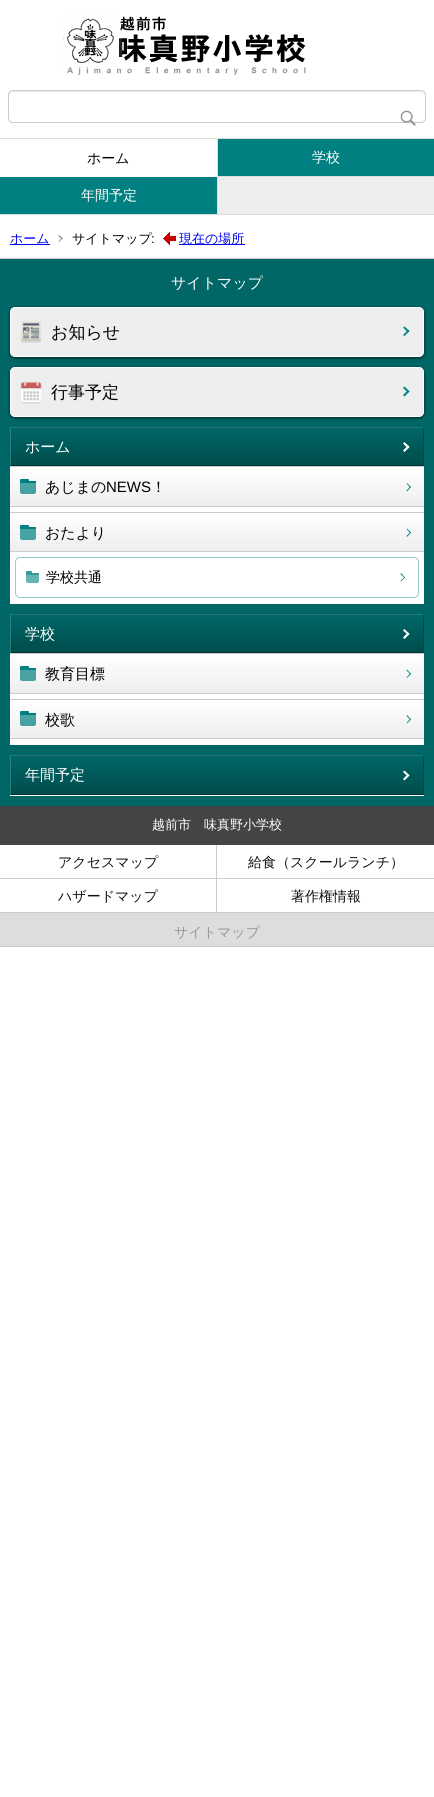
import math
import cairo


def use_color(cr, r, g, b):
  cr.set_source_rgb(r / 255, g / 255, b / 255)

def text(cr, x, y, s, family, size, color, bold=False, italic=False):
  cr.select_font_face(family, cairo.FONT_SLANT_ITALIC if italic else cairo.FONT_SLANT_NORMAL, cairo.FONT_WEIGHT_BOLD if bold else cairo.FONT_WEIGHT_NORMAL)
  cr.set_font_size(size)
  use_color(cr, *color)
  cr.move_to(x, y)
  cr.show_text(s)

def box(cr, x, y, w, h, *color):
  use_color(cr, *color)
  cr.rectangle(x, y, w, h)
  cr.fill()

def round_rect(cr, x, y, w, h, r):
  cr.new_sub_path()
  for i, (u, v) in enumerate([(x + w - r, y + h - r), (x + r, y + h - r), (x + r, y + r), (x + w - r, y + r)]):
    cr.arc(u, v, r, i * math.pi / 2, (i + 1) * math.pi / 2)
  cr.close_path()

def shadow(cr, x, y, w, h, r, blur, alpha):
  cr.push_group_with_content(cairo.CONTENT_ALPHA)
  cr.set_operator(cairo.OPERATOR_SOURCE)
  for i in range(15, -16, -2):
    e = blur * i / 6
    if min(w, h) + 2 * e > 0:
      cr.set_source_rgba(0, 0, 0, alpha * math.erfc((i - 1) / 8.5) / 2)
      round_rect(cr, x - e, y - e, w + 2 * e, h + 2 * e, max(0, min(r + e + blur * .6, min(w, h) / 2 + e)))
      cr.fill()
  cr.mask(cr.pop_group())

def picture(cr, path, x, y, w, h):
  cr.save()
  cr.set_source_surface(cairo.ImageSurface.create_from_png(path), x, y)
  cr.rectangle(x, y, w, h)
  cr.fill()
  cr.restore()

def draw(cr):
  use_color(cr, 255, 255, 255)
  cr.paint()
  picture(cr, "img_01.png", 62, 15, 244, 60)
  use_color(cr, 236, 236, 236)
  cr.new_path()
  cr.move_to(13, 92)
  cr.line_to(421, 92)
  cr.curve_to(423, 92, 425, 94, 425, 96)
  cr.line_to(425, 95)
  cr.curve_to(425, 93, 423, 91, 421, 91)
  cr.line_to(13, 91)
  cr.curve_to(11, 91, 9, 93, 9, 95)
  cr.line_to(9, 96)
  cr.curve_to(9, 94, 11, 92, 13, 92)
  cr.close_path()
  cr.fill()
  round_rect(cr, 8.5, 90.5, 417, 32, 4.5)
  use_color(cr, 204, 204, 204)
  cr.set_line_width(1)
  cr.stroke()
  picture(cr, "img_02.png", 400, 110, 16, 16)
  box(cr, 218, 177, 216, 37, 238, 238, 238)
  box(cr, 0, 138, 434, 1, 221, 221, 221)
  box(cr, 217, 176, 217, 1, 221, 221, 221)
  box(cr, 0, 214, 434, 1, 221, 221, 221)
  box(cr, 217, 139, 1, 76, 221, 221, 221)
  box(cr, 218, 139, 216, 37, 0, 128, 128)
  box(cr, 0, 177, 217, 37, 0, 128, 128)
  box(cr, 0, 258, 434, 1, 204, 204, 204)
  box(cr, 10, 244, 40, 1, 0, 0, 238)
  use_color(cr, 119, 119, 119)
  cr.new_path()
  cr.move_to(59, 235)
  cr.line_to(62.5, 238.5)
  cr.line_to(62, 239.5)
  cr.line_to(58.5, 236)
  cr.close_path()
  cr.fill()
  cr.new_path()
  cr.move_to(62, 238)
  cr.line_to(62.5, 238.5)
  cr.line_to(59, 242)
  cr.line_to(58.5, 241.5)
  cr.close_path()
  cr.fill()
  picture(cr, "img_03.png", 163, 232, 13, 13)
  box(cr, 179, 244, 66, 1, 0, 0, 238)
  box(cr, 0, 259, 434, 168, 0, 102, 102)
  use_color(cr, 0, 51, 51)
  shadow(cr, 10, 308, 414, 50, 5, 1, 0.8)
  shadow(cr, 10, 308, 414, 50, 5, 1.5, 1)
  use_color(cr, 238, 238, 238)
  round_rect(cr, 10.5, 307.5, 413, 49, 4.5)
  cr.fill_preserve()
  use_color(cr, 255, 255, 255)
  cr.stroke()
  picture(cr, "img_04.png", 20, 321, 22, 22)
  use_color(cr, 0, 128, 128)
  cr.new_path()
  cr.move_to(404.5, 326.5)
  cr.line_to(409.5, 331)
  cr.line_to(408, 332.5)
  cr.line_to(403, 327.5)
  cr.close_path()
  cr.fill()
  cr.new_path()
  cr.move_to(408, 330)
  cr.line_to(409.5, 331)
  cr.line_to(404.5, 336)
  cr.line_to(403, 335)
  cr.close_path()
  cr.fill()
  use_color(cr, 0, 51, 51)
  shadow(cr, 10, 368, 414, 50, 5, 1, 0.8)
  shadow(cr, 10, 368, 414, 50, 5, 1.5, 1)
  use_color(cr, 238, 238, 238)
  round_rect(cr, 10.5, 367.5, 413, 49, 4.5)
  cr.fill_preserve()
  use_color(cr, 255, 255, 255)
  cr.stroke()
  picture(cr, "img_05.png", 20, 380, 22, 24)
  use_color(cr, 0, 128, 128)
  cr.new_path()
  cr.move_to(404.5, 386.5)
  cr.line_to(409.5, 391.5)
  cr.line_to(408, 392.5)
  cr.line_to(403, 388)
  cr.close_path()
  cr.fill()
  cr.new_path()
  cr.move_to(408, 390)
  cr.line_to(409.5, 391.5)
  cr.line_to(404.5, 396.5)
  cr.line_to(403, 395)
  cr.close_path()
  cr.fill()
  box(cr, 424, 427, 10, 177, 0, 102, 102)
  box(cr, 10, 604, 424, 10, 0, 102, 102)
  box(cr, 0, 427, 10, 379, 0, 102, 102)
  gradient = cairo.LinearGradient(217, 391, 217, 428)
  gradient.add_color_stop_rgba(0, 0, 0.4, 0.4, 1)
  gradient.add_color_stop_rgba(1, 0, 0.302, 0.302, 1)
  cr.set_source(gradient)
  cr.rectangle(10, 427, 414, 1)
  cr.fill()
  gradient = cairo.LinearGradient(217, 428, 217, 465)
  gradient.add_color_stop_rgba(0, 0, 0.4, 0.4, 1)
  gradient.add_color_stop_rgba(1, 0, 0.302, 0.302, 1)
  cr.set_source(gradient)
  cr.rectangle(10, 428, 414, 37)
  cr.fill()
  gradient = cairo.LinearGradient(217, 465, 217, 502)
  gradient.add_color_stop_rgba(0, 0, 0.4, 0.4, 1)
  gradient.add_color_stop_rgba(1, 0, 0.302, 0.302, 1)
  cr.set_source(gradient)
  cr.rectangle(10, 465, 414, 1)
  cr.fill()
  use_color(cr, 41, 118, 118)
  cr.new_path()
  cr.move_to(10, 427)
  cr.line_to(424, 427)
  cr.line_to(423, 428)
  cr.line_to(11, 428)
  cr.close_path()
  cr.fill()
  cr.set_source_rgba(0, 0.2, 0.2, 0.4)
  cr.new_path()
  cr.move_to(424, 427)
  cr.line_to(424, 466)
  cr.line_to(423, 465)
  cr.line_to(423, 428)
  cr.close_path()
  cr.fill()
  use_color(cr, 0, 51, 51)
  cr.new_path()
  cr.move_to(424, 466)
  cr.line_to(10, 466)
  cr.line_to(11, 465)
  cr.line_to(423, 465)
  cr.close_path()
  cr.fill()
  cr.set_source_rgba(0.4, 0.702, 0.702, 0.4)
  cr.new_path()
  cr.move_to(10, 466)
  cr.line_to(10, 427)
  cr.line_to(11, 428)
  cr.line_to(11, 465)
  cr.close_path()
  cr.fill()
  use_color(cr, 255, 255, 255)
  cr.new_path()
  cr.move_to(404.5, 442)
  cr.line_to(409.5, 447)
  cr.line_to(408, 448.5)
  cr.line_to(403, 443.5)
  cr.close_path()
  cr.fill()
  cr.new_path()
  cr.move_to(408, 445.5)
  cr.line_to(409.5, 447)
  cr.line_to(404.5, 452)
  cr.line_to(403, 450.5)
  cr.close_path()
  cr.fill()
  box(cr, 10, 466, 414, 1, 204, 204, 204)
  gradient = cairo.LinearGradient(217, 467, 217, 506)
  gradient.add_color_stop_rgba(0, 1, 1, 1, 1)
  gradient.add_color_stop_rgba(1, 0.933, 0.933, 0.933, 1)
  cr.set_source(gradient)
  cr.rectangle(10, 473, 414, 33)
  cr.fill()
  use_color(cr, 0, 128, 128)
  cr.new_path()
  cr.move_to(21, 479)
  cr.line_to(28, 479)
  cr.curve_to(28.5, 479, 29, 479.5, 29, 480)
  cr.line_to(29, 482)
  cr.line_to(20, 482)
  cr.line_to(20, 480)
  cr.curve_to(20, 479.5, 20.5, 479, 21, 479)
  cr.close_path()
  cr.fill()
  box(cr, 10, 506, 414, 1, 204, 204, 204)
  use_color(cr, 0, 128, 128)
  cr.new_path()
  cr.move_to(407, 483)
  cr.line_to(411, 487)
  cr.line_to(410.5, 488)
  cr.line_to(406.5, 483.5)
  cr.close_path()
  cr.fill()
  cr.new_path()
  cr.move_to(410.5, 486.5)
  cr.line_to(411, 487)
  cr.line_to(407, 491.5)
  cr.line_to(406.5, 490.5)
  cr.close_path()
  cr.fill()
  cr.set_source_rgba(0, 0.502, 0.502, 0.7)
  cr.new_path()
  cr.move_to(20, 481)
  cr.line_to(35, 481)
  cr.curve_to(35.5, 481, 36, 481.5, 36, 482)
  cr.line_to(36, 492)
  cr.curve_to(36, 493, 35, 494, 34, 494)
  cr.line_to(22, 494)
  cr.curve_to(21, 494, 20, 493, 20, 492)
  cr.close_path()
  cr.fill()
  box(cr, 20, 481, 16, 2, 0, 128, 128)
  box(cr, 10, 512, 414, 1, 204, 204, 204)
  gradient = cairo.LinearGradient(217, 513, 217, 551)
  gradient.add_color_stop_rgba(0, 1, 1, 1, 1)
  gradient.add_color_stop_rgba(1, 0.933, 0.933, 0.933, 1)
  cr.set_source(gradient)
  cr.rectangle(10, 519, 414, 32)
  cr.fill()
  use_color(cr, 0, 128, 128)
  cr.new_path()
  cr.move_to(21, 525)
  cr.line_to(28, 525)
  cr.curve_to(28.5, 525, 29, 525.5, 29, 526)
  cr.line_to(29, 528)
  cr.line_to(20, 528)
  cr.line_to(20, 526)
  cr.curve_to(20, 525.5, 20.5, 525, 21, 525)
  cr.close_path()
  cr.fill()
  box(cr, 10, 551, 414, 1, 204, 204, 204)
  use_color(cr, 0, 128, 128)
  cr.new_path()
  cr.move_to(407, 528.5)
  cr.line_to(411, 532.5)
  cr.line_to(410.5, 533.5)
  cr.line_to(406.5, 529)
  cr.close_path()
  cr.fill()
  cr.new_path()
  cr.move_to(410.5, 532)
  cr.line_to(411, 532.5)
  cr.line_to(407, 537)
  cr.line_to(406.5, 536)
  cr.close_path()
  cr.fill()
  cr.set_source_rgba(0, 0.502, 0.502, 0.7)
  cr.new_path()
  cr.move_to(20, 527)
  cr.line_to(35, 527)
  cr.curve_to(35.5, 527, 36, 527.5, 36, 528)
  cr.line_to(36, 538)
  cr.curve_to(36, 539, 35, 540, 34, 540)
  cr.line_to(22, 540)
  cr.curve_to(21, 540, 20, 539, 20, 538)
  cr.close_path()
  cr.fill()
  box(cr, 20, 527, 16, 2, 0, 128, 128)
  use_color(cr, 230, 242, 242)
  round_rect(cr, 15.5, 557.5, 403, 40, 4.5)
  cr.fill_preserve()
  use_color(cr, 153, 204, 204)
  cr.stroke()
  use_color(cr, 255, 255, 255)
  round_rect(cr, 16, 558, 402, 39, 5)
  cr.fill()
  use_color(cr, 51, 153, 153)
  cr.new_path()
  cr.move_to(27, 571)
  cr.line_to(31, 571)
  cr.curve_to(31.5, 571, 32, 571.5, 32, 572)
  cr.line_to(32, 574)
  cr.line_to(26, 574)
  cr.line_to(26, 572)
  cr.curve_to(26, 571.5, 26.5, 571, 27, 571)
  cr.close_path()
  cr.fill()
  use_color(cr, 0, 128, 128)
  cr.new_path()
  cr.move_to(401, 573)
  cr.line_to(405, 577.5)
  cr.line_to(404.5, 578)
  cr.line_to(400.5, 574)
  cr.close_path()
  cr.fill()
  cr.new_path()
  cr.move_to(404.5, 577)
  cr.line_to(405, 577.5)
  cr.line_to(401, 581.5)
  cr.line_to(400.5, 581)
  cr.close_path()
  cr.fill()
  use_color(cr, 102, 179, 179)
  cr.new_path()
  cr.move_to(26, 573)
  cr.line_to(38, 573)
  cr.curve_to(38.5, 573, 39, 573.5, 39, 574)
  cr.line_to(39, 581)
  cr.curve_to(39, 582, 38, 583, 37, 583)
  cr.line_to(28, 583)
  cr.curve_to(27, 583, 26, 582, 26, 581)
  cr.close_path()
  cr.fill()
  box(cr, 26, 573, 13, 2, 51, 153, 153)
  box(cr, 424, 614, 10, 131, 0, 102, 102)
  box(cr, 10, 745, 424, 10, 0, 102, 102)
  gradient = cairo.LinearGradient(217, 578, 217, 615)
  gradient.add_color_stop_rgba(0, 0, 0.4, 0.4, 1)
  gradient.add_color_stop_rgba(1, 0, 0.302, 0.302, 1)
  cr.set_source(gradient)
  cr.rectangle(10, 614, 414, 1)
  cr.fill()
  gradient = cairo.LinearGradient(217, 615, 217, 652)
  gradient.add_color_stop_rgba(0, 0, 0.4, 0.4, 1)
  gradient.add_color_stop_rgba(1, 0, 0.302, 0.302, 1)
  cr.set_source(gradient)
  cr.rectangle(10, 615, 414, 37)
  cr.fill()
  gradient = cairo.LinearGradient(217, 652, 217, 689)
  gradient.add_color_stop_rgba(0, 0, 0.4, 0.4, 1)
  gradient.add_color_stop_rgba(1, 0, 0.302, 0.302, 1)
  cr.set_source(gradient)
  cr.rectangle(10, 652, 414, 1)
  cr.fill()
  use_color(cr, 41, 118, 118)
  cr.new_path()
  cr.move_to(10, 614)
  cr.line_to(424, 614)
  cr.line_to(423, 615)
  cr.line_to(11, 615)
  cr.close_path()
  cr.fill()
  cr.set_source_rgba(0, 0.2, 0.2, 0.4)
  cr.new_path()
  cr.move_to(424, 614)
  cr.line_to(424, 653)
  cr.line_to(423, 652)
  cr.line_to(423, 615)
  cr.close_path()
  cr.fill()
  use_color(cr, 0, 51, 51)
  cr.new_path()
  cr.move_to(424, 653)
  cr.line_to(10, 653)
  cr.line_to(11, 652)
  cr.line_to(423, 652)
  cr.close_path()
  cr.fill()
  cr.set_source_rgba(0.4, 0.702, 0.702, 0.4)
  cr.new_path()
  cr.move_to(10, 653)
  cr.line_to(10, 614)
  cr.line_to(11, 615)
  cr.line_to(11, 652)
  cr.close_path()
  cr.fill()
  use_color(cr, 255, 255, 255)
  cr.new_path()
  cr.move_to(404.5, 629)
  cr.line_to(409.5, 634)
  cr.line_to(408, 635)
  cr.line_to(403, 630.5)
  cr.close_path()
  cr.fill()
  cr.new_path()
  cr.move_to(408, 632.5)
  cr.line_to(409.5, 634)
  cr.line_to(404.5, 639)
  cr.line_to(403, 637.5)
  cr.close_path()
  cr.fill()
  box(cr, 10, 653, 414, 1, 204, 204, 204)
  gradient = cairo.LinearGradient(217, 654, 217, 693)
  gradient.add_color_stop_rgba(0, 1, 1, 1, 1)
  gradient.add_color_stop_rgba(1, 0.933, 0.933, 0.933, 1)
  cr.set_source(gradient)
  cr.rectangle(10, 660, 414, 33)
  cr.fill()
  use_color(cr, 0, 128, 128)
  cr.new_path()
  cr.move_to(21, 666)
  cr.line_to(28, 666)
  cr.curve_to(28.5, 666, 29, 666.5, 29, 667)
  cr.line_to(29, 669)
  cr.line_to(20, 669)
  cr.line_to(20, 667)
  cr.curve_to(20, 666.5, 20.5, 666, 21, 666)
  cr.close_path()
  cr.fill()
  box(cr, 10, 693, 414, 1, 204, 204, 204)
  use_color(cr, 0, 128, 128)
  cr.new_path()
  cr.move_to(407, 669.5)
  cr.line_to(411, 674)
  cr.line_to(410.5, 674.5)
  cr.line_to(406.5, 670.5)
  cr.close_path()
  cr.fill()
  cr.new_path()
  cr.move_to(410.5, 673)
  cr.line_to(411, 674)
  cr.line_to(407, 678)
  cr.line_to(406.5, 677.5)
  cr.close_path()
  cr.fill()
  cr.set_source_rgba(0, 0.502, 0.502, 0.7)
  cr.new_path()
  cr.move_to(20, 668)
  cr.line_to(35, 668)
  cr.curve_to(35.5, 668, 36, 668.5, 36, 669)
  cr.line_to(36, 679)
  cr.curve_to(36, 680, 35, 681, 34, 681)
  cr.line_to(22, 681)
  cr.curve_to(21, 681, 20, 680, 20, 679)
  cr.close_path()
  cr.fill()
  box(cr, 20, 668, 16, 2, 0, 128, 128)
  box(cr, 10, 699, 414, 1, 204, 204, 204)
  gradient = cairo.LinearGradient(217, 700, 217, 738)
  gradient.add_color_stop_rgba(0, 1, 1, 1, 1)
  gradient.add_color_stop_rgba(1, 0.933, 0.933, 0.933, 1)
  cr.set_source(gradient)
  cr.rectangle(10, 706, 414, 32)
  cr.fill()
  use_color(cr, 0, 128, 128)
  cr.new_path()
  cr.move_to(21, 711)
  cr.line_to(28, 711)
  cr.curve_to(28.5, 711, 29, 711.5, 29, 712)
  cr.line_to(29, 714)
  cr.line_to(20, 714)
  cr.line_to(20, 712)
  cr.curve_to(20, 711.5, 20.5, 711, 21, 711)
  cr.close_path()
  cr.fill()
  box(cr, 10, 738, 414, 1, 204, 204, 204)
  use_color(cr, 0, 128, 128)
  cr.new_path()
  cr.move_to(407, 715)
  cr.line_to(411, 719.5)
  cr.line_to(410.5, 720)
  cr.line_to(406.5, 716)
  cr.close_path()
  cr.fill()
  cr.new_path()
  cr.move_to(410.5, 718.5)
  cr.line_to(411, 719.5)
  cr.line_to(407, 723.5)
  cr.line_to(406.5, 723)
  cr.close_path()
  cr.fill()
  cr.set_source_rgba(0, 0.502, 0.502, 0.7)
  cr.new_path()
  cr.move_to(20, 713)
  cr.line_to(35, 713)
  cr.curve_to(35.5, 713, 36, 713.5, 36, 714)
  cr.line_to(36, 724)
  cr.curve_to(36, 725, 35, 726, 34, 726)
  cr.line_to(22, 726)
  cr.curve_to(21, 726, 20, 725, 20, 724)
  cr.close_path()
  cr.fill()
  box(cr, 20, 713, 16, 2, 0, 128, 128)
  box(cr, 424, 755, 10, 41, 0, 102, 102)
  box(cr, 10, 796, 424, 10, 0, 102, 102)
  gradient = cairo.LinearGradient(217, 718, 217, 756)
  gradient.add_color_stop_rgba(0, 0, 0.4, 0.4, 1)
  gradient.add_color_stop_rgba(1, 0, 0.302, 0.302, 1)
  cr.set_source(gradient)
  cr.rectangle(10, 755, 414, 1)
  cr.fill()
  gradient = cairo.LinearGradient(217, 756, 217, 794)
  gradient.add_color_stop_rgba(0, 0, 0.4, 0.4, 1)
  gradient.add_color_stop_rgba(1, 0, 0.302, 0.302, 1)
  cr.set_source(gradient)
  cr.rectangle(10, 756, 414, 38)
  cr.fill()
  gradient = cairo.LinearGradient(217, 794, 217, 832)
  gradient.add_color_stop_rgba(0, 0, 0.4, 0.4, 1)
  gradient.add_color_stop_rgba(1, 0, 0.302, 0.302, 1)
  cr.set_source(gradient)
  cr.rectangle(10, 794, 414, 1)
  cr.fill()
  use_color(cr, 41, 118, 118)
  cr.new_path()
  cr.move_to(10, 755)
  cr.line_to(424, 755)
  cr.line_to(423, 756)
  cr.line_to(11, 756)
  cr.close_path()
  cr.fill()
  cr.set_source_rgba(0, 0.2, 0.2, 0.4)
  cr.new_path()
  cr.move_to(424, 755)
  cr.line_to(424, 795)
  cr.line_to(423, 794)
  cr.line_to(423, 756)
  cr.close_path()
  cr.fill()
  use_color(cr, 0, 51, 51)
  cr.new_path()
  cr.move_to(424, 795)
  cr.line_to(10, 795)
  cr.line_to(11, 794)
  cr.line_to(423, 794)
  cr.close_path()
  cr.fill()
  cr.set_source_rgba(0.4, 0.702, 0.702, 0.4)
  cr.new_path()
  cr.move_to(10, 795)
  cr.line_to(10, 755)
  cr.line_to(11, 756)
  cr.line_to(11, 794)
  cr.close_path()
  cr.fill()
  use_color(cr, 255, 255, 255)
  cr.new_path()
  cr.move_to(404.5, 770.5)
  cr.line_to(409.5, 775.5)
  cr.line_to(408, 776.5)
  cr.line_to(403, 772)
  cr.close_path()
  cr.fill()
  cr.new_path()
  cr.move_to(408, 774)
  cr.line_to(409.5, 775.5)
  cr.line_to(404.5, 780.5)
  cr.line_to(403, 779)
  cr.close_path()
  cr.fill()
  box(cr, 0, 806, 434, 39, 68, 68, 68)
  box(cr, 216, 845, 1, 68, 204, 204, 204)
  box(cr, 0, 878, 434, 1, 204, 204, 204)
  box(cr, 0, 912, 434, 1, 204, 204, 204)
  box(cr, 0, 913, 434, 33, 221, 221, 221)
  box(cr, 0, 946, 434, 1, 204, 204, 204)
  text(cr, 87, 163, "ホーム", "WenQuanYi Zen Hei Medium", 14, (0, 0, 0))
  text(cr, 312, 162, "学校", "WenQuanYi Zen Hei Medium", 14, (255, 255, 255))
  text(cr, 81, 200, "年間予定", "WenQuanYi Zen Hei Medium", 14, (255, 255, 255))
  text(cr, 10, 243, "ホーム", "WenQuanYi Zen Hei Medium", 13, (0, 0, 238))
  text(cr, 72, 243, "サイトマップ", "WenQuanYi Zen Hei Medium", 13, (0, 0, 0))
  text(cr, 151, 243, ":", "Liberation Sans", 13, (0, 0, 0))
  text(cr, 179, 243, "現在の場所", "WenQuanYi Zen Hei Medium", 13, (0, 0, 238))
  text(cr, 171, 288, "サイトマップ", "WenQuanYi Zen Hei Medium", 15, (255, 255, 255))
  text(cr, 51, 338, "お知らせ", "WenQuanYi Zen Hei Medium", 17, (0, 0, 0))
  text(cr, 51, 398, "行事予定", "WenQuanYi Zen Hei Medium", 17, (0, 0, 0))
  text(cr, 25, 452, "ホーム", "WenQuanYi Zen Hei Medium", 15, (255, 255, 255))
  text(cr, 45, 492, "あじまの", "WenQuanYi Zen Hei Medium", 15, (0, 0, 0))
  text(cr, 106, 492, "NEWS", "Liberation Sans", 15, (0, 0, 0))
  text(cr, 151, 492, "！", "WenQuanYi Zen Hei Medium", 15, (0, 0, 0))
  text(cr, 45, 538, "おたより", "WenQuanYi Zen Hei Medium", 15, (0, 0, 0))
  text(cr, 46, 582, "学校共通", "WenQuanYi Zen Hei Medium", 14, (0, 0, 0))
  text(cr, 25, 639, "学校", "WenQuanYi Zen Hei Medium", 15, (255, 255, 255))
  text(cr, 45, 679, "教育目標", "WenQuanYi Zen Hei Medium", 15, (0, 0, 0))
  text(cr, 45, 725, "校歌", "WenQuanYi Zen Hei Medium", 15, (0, 0, 0))
  text(cr, 25, 780, "年間予定", "WenQuanYi Zen Hei Medium", 15, (255, 255, 255))
  text(cr, 152, 829, "越前市　味真野小学校", "WenQuanYi Zen Hei Medium", 13, (255, 255, 255))
  text(cr, 58, 867, "アクセスマップ", "WenQuanYi Zen Hei Medium", 14, (17, 17, 17))
  text(cr, 248, 867, "給食（スクールランチ）", "WenQuanYi Zen Hei Medium", 14, (17, 17, 17))
  text(cr, 58, 901, "ハザードマップ", "WenQuanYi Zen Hei Medium", 14, (17, 17, 17))
  text(cr, 291, 901, "著作権情報", "WenQuanYi Zen Hei Medium", 14, (17, 17, 17))
  text(cr, 174, 937, "サイトマップ", "WenQuanYi Zen Hei Medium", 14, (153, 153, 153))


surface = cairo.ImageSurface(cairo.FORMAT_RGB24, 434, 1797)
cr = cairo.Context(surface)
options = cairo.FontOptions()
options.set_hint_metrics(cairo.HINT_METRICS_OFF)
options.set_hint_style(cairo.HINT_STYLE_NONE)
cr.set_font_options(options)
cr.set_miter_limit(4)
draw(cr)
surface.write_to_png("out.png")
